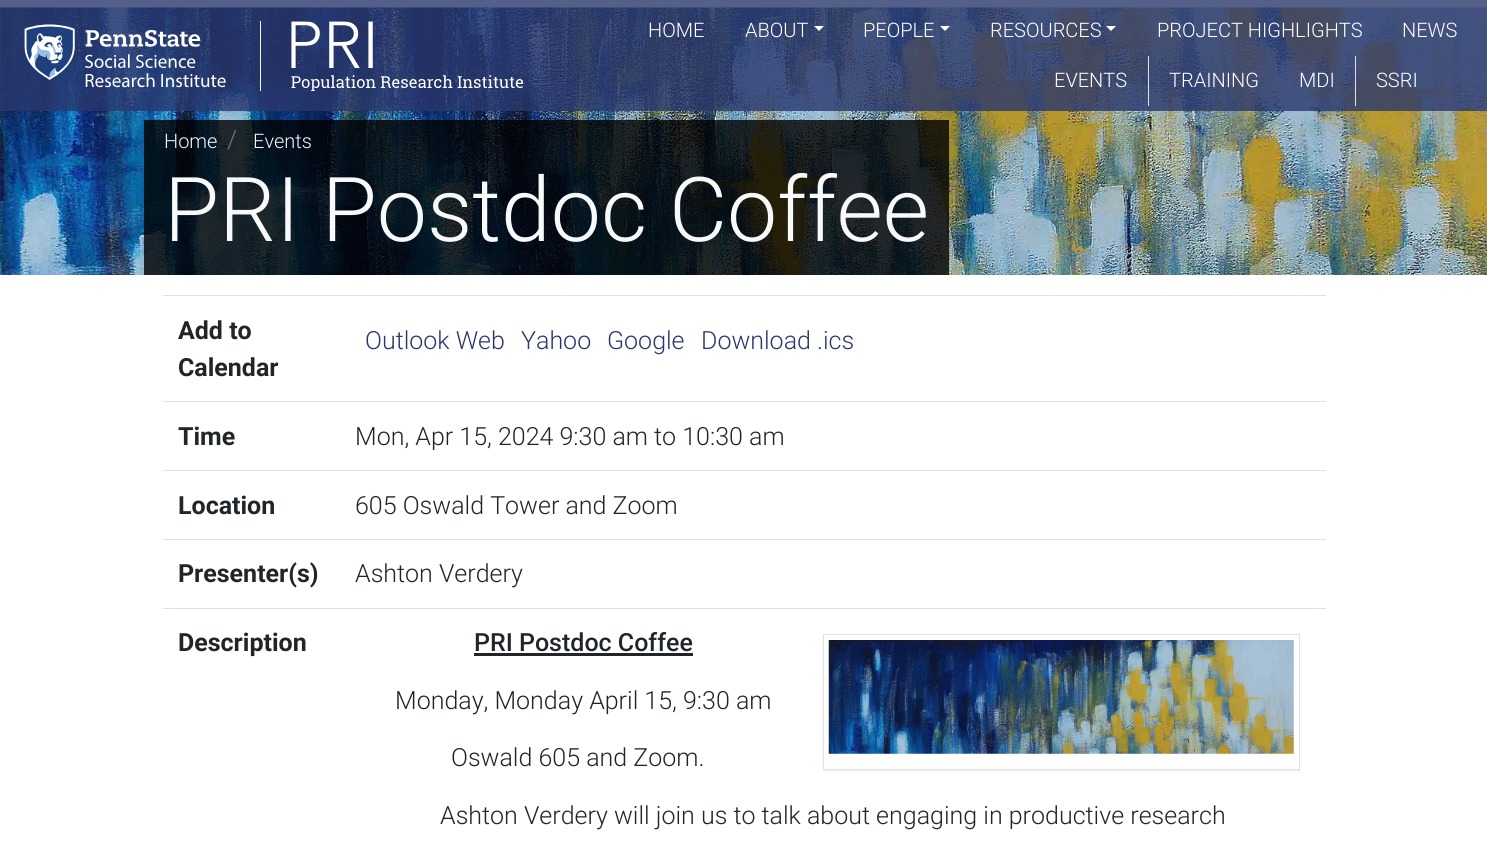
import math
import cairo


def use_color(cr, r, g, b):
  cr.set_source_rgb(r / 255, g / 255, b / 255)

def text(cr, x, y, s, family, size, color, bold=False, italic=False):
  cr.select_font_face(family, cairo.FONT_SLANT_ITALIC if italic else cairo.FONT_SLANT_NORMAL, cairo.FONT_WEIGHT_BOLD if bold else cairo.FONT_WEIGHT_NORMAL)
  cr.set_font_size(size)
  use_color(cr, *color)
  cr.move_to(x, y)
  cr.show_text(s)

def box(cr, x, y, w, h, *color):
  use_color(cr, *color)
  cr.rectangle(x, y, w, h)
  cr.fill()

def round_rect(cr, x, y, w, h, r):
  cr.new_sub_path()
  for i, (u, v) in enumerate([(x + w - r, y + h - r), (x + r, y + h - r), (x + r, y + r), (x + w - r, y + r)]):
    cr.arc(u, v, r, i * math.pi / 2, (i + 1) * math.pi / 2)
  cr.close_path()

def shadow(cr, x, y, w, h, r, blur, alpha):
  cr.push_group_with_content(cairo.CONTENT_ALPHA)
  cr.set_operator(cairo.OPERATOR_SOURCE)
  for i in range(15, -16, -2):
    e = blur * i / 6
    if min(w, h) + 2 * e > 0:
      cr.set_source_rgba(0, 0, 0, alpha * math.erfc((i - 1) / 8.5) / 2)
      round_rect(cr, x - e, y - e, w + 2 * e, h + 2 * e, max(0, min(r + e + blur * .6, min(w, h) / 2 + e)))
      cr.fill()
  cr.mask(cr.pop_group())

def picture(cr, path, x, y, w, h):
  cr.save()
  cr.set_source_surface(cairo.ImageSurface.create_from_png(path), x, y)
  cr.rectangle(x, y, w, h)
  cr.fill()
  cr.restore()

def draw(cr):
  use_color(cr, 255, 255, 255)
  cr.paint()
  picture(cr, "img_03.png", 0, 7, 1487, 268)
  cr.set_source_rgba(0.165, 0.216, 0.427, 0.8)
  cr.rectangle(0, 0, 1487, 111)
  cr.fill()
  picture(cr, "img_01.png", 24, 24, 202, 64)
  box(cr, 260, 21, 1, 70, 248, 249, 250)
  picture(cr, "img_02.png", 291, 21, 233, 70)
  use_color(cr, 255, 255, 255)
  cr.new_path()
  cr.move_to(814, 26)
  cr.line_to(824, 26)
  cr.line_to(819, 31)
  cr.close_path()
  cr.fill()
  cr.new_path()
  cr.move_to(940, 26)
  cr.line_to(950, 26)
  cr.line_to(945, 31)
  cr.close_path()
  cr.fill()
  cr.new_path()
  cr.move_to(1106, 26)
  cr.line_to(1116, 26)
  cr.line_to(1111, 31)
  cr.close_path()
  cr.fill()
  box(cr, 1148, 56, 1, 50, 222, 226, 230)
  box(cr, 1355, 56, 1, 50, 222, 226, 230)
  cr.set_source_rgba(0, 0, 0, 0.8)
  cr.rectangle(144, 120, 805, 155)
  cr.fill()
  box(cr, 163, 295, 1163, 1, 222, 226, 230)
  box(cr, 163, 401, 1163, 1, 222, 226, 230)
  box(cr, 163, 470, 1163, 1, 222, 226, 230)
  box(cr, 163, 539, 1163, 1, 222, 226, 230)
  box(cr, 163, 608, 1163, 1, 222, 226, 230)
  box(cr, 474, 653, 219, 3, 33, 37, 41)
  cr.save()
  cr.set_fill_rule(cairo.FILL_RULE_EVEN_ODD)
  cr.new_path()
  cr.move_to(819, 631)
  cr.line_to(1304, 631)
  cr.line_to(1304, 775)
  cr.line_to(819, 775)
  cr.close_path()
  cr.move_to(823, 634)
  cr.line_to(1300, 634)
  cr.line_to(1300, 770)
  cr.line_to(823, 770)
  cr.close_path()
  cr.clip()
  use_color(cr, 0, 0, 0)
  shadow(cr, 823, 635, 477, 136, 0, 1, 0.07)
  cr.restore()
  cr.rectangle(823.5, 634.5, 476, 135)
  use_color(cr, 222, 226, 230)
  cr.set_line_width(1)
  cr.stroke()
  picture(cr, "img_04.png", 828, 640, 466, 114)
  text(cr, 648, 37, "HOME", "Roboto Light", 20, (255, 255, 255))
  text(cr, 745, 37, "ABOUT", "Roboto Light", 20, (255, 255, 255))
  text(cr, 863, 37, "PEOPLE", "Roboto Light", 20, (255, 255, 255))
  text(cr, 990, 37, "RESOURCES", "Roboto Light", 20, (255, 255, 255))
  text(cr, 1157, 37, "PROJECT HIGHLIGHTS", "Roboto Light", 20, (255, 255, 255))
  text(cr, 1402, 37, "NEWS", "Roboto Light", 20, (255, 255, 255))
  text(cr, 1054, 87, "EVENTS", "Roboto Light", 20, (255, 255, 255))
  text(cr, 1169, 87, "TRAINING", "Roboto Light", 20, (255, 255, 255))
  text(cr, 1299, 87, "MDI", "Roboto Light", 20, (255, 255, 255))
  text(cr, 1376, 87, "SSRI", "Roboto Light", 20, (255, 255, 255))
  text(cr, 164, 148, "Home", "Roboto Light", 20, (248, 249, 250))
  text(cr, 227, 148, "/", "Roboto Light", 25, (108, 117, 125))
  text(cr, 253, 148, "Events", "Roboto Light", 20, (248, 249, 250))
  text(cr, 164, 241, "PRI Postdoc Coffee", "Roboto Light", 89.5, (248, 249, 250))
  text(cr, 178, 339, "Add to", "Roboto", 25, (33, 37, 41), bold=True)
  text(cr, 178, 376, "Calendar", "Roboto", 25, (33, 37, 41), bold=True)
  text(cr, 365, 349, "Outlook Web", "Roboto Light", 25, (42, 55, 109))
  text(cr, 521, 349, "Yahoo", "Roboto Light", 25, (42, 55, 109))
  text(cr, 607, 349, "Google", "Roboto Light", 25, (42, 55, 109))
  text(cr, 701, 349, "Download .ics", "Roboto Light", 25, (42, 55, 109))
  text(cr, 178, 445, "Time", "Roboto", 25, (33, 37, 41), bold=True)
  text(cr, 355, 445, "Mon, Apr 15, 2024 9:30 am to 10:30 am", "Roboto Light", 25, (33, 37, 41))
  text(cr, 178, 514, "Location", "Roboto", 25, (33, 37, 41), bold=True)
  text(cr, 355, 514, "605 Oswald Tower and Zoom", "Roboto Light", 25, (33, 37, 41))
  text(cr, 178, 582, "Presenter(s)", "Roboto", 25, (33, 37, 41), bold=True)
  text(cr, 355, 582, "Ashton Verdery", "Roboto Light", 25, (33, 37, 41))
  text(cr, 178, 651, "Description", "Roboto", 25, (33, 37, 41), bold=True)
  text(cr, 474, 651, "PRI Postdoc Coffee", "Roboto Medium", 25, (33, 37, 41))
  text(cr, 395, 709, "Monday, Monday April 15, 9:30 am", "Roboto Light", 25, (33, 37, 41))
  text(cr, 451, 766, "Oswald 605 and Zoom.", "Roboto Light", 25, (33, 37, 41))
  text(cr, 440, 824, "Ashton Verdery will join us to talk about engaging in productive research", "Roboto Light", 25, (33, 37, 41))


surface = cairo.ImageSurface(cairo.FORMAT_RGB24, 1487, 853)
cr = cairo.Context(surface)
options = cairo.FontOptions()
options.set_hint_metrics(cairo.HINT_METRICS_OFF)
options.set_hint_style(cairo.HINT_STYLE_NONE)
cr.set_font_options(options)
cr.set_miter_limit(4)
draw(cr)
surface.write_to_png("out.png")
